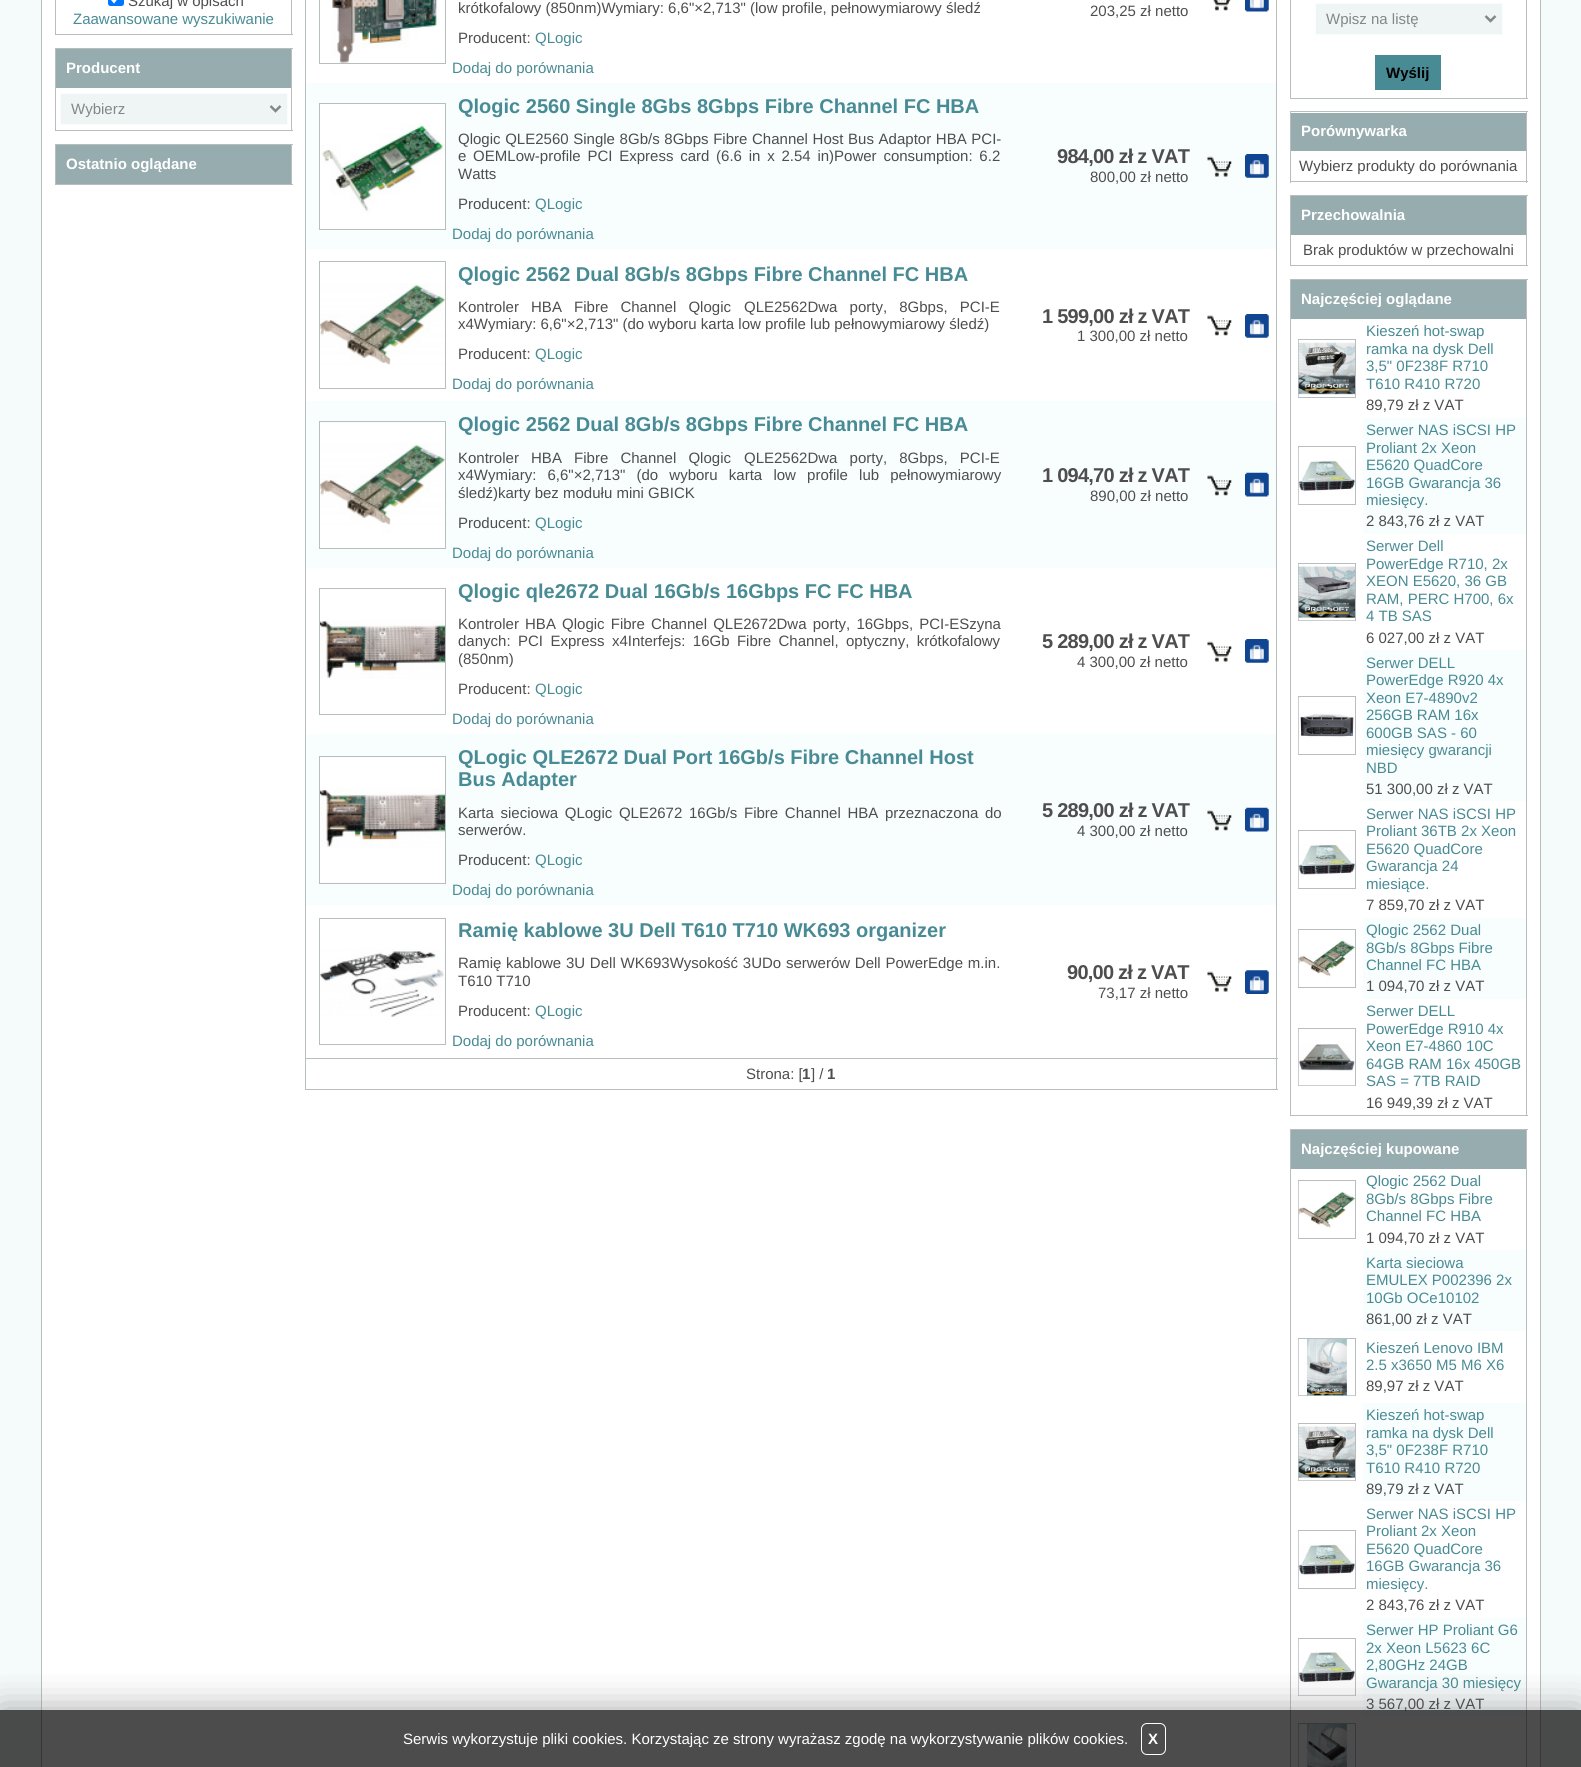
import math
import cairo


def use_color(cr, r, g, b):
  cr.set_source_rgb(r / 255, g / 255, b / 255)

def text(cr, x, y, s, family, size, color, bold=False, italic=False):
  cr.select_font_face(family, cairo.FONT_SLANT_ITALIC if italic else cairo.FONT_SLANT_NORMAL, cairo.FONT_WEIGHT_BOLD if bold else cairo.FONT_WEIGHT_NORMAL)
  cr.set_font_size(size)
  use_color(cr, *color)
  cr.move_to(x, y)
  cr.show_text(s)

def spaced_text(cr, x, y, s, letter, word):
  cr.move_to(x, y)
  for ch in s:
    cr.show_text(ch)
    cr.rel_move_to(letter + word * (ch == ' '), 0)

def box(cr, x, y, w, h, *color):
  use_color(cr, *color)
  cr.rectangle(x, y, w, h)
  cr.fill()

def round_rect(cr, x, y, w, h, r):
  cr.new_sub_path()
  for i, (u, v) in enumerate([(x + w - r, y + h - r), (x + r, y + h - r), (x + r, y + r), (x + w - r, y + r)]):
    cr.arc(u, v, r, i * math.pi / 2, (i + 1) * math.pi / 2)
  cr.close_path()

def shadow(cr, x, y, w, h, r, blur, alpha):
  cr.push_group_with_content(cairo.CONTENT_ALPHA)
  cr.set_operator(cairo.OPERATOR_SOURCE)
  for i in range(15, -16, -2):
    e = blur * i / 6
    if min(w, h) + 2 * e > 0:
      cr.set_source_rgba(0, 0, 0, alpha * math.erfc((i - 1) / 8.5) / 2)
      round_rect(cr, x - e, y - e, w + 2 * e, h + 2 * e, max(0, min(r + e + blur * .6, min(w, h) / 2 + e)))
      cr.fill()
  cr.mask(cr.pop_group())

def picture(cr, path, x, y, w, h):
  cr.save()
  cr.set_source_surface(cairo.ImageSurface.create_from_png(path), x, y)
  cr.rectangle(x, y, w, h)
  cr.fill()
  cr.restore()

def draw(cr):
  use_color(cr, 245, 250, 251)
  cr.paint()
  use_color(cr, 255, 255, 255)
  cr.rectangle(41.5, -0.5, 1499, 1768)
  cr.fill_preserve()
  use_color(cr, 184, 189, 190)
  cr.set_line_width(1)
  cr.stroke()
  box(cr, 291, 0, 1, 35, 184, 189, 190)
  box(cr, 55, 34, 238, 1, 184, 189, 190)
  box(cr, 55, 0, 1, 35, 184, 189, 190)
  use_color(cr, 0, 117, 255)
  round_rect(cr, 108, -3, 16, 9, 2.5)
  cr.fill()
  cr.new_path()
  cr.move_to(111, -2)
  cr.line_to(114, 1.5)
  cr.line_to(120.5, -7)
  use_color(cr, 255, 255, 255)
  cr.set_line_width(2.6)
  cr.stroke()
  box(cr, 56, 49, 235, 39, 150, 172, 175)
  box(cr, 55, 48, 238, 1, 184, 189, 190)
  box(cr, 291, 48, 1, 83, 184, 189, 190)
  box(cr, 55, 48, 1, 40, 184, 189, 190)
  box(cr, 55, 130, 238, 1, 184, 189, 190)
  box(cr, 55, 88, 1, 43, 184, 189, 190)
  use_color(cr, 239, 244, 245)
  cr.rectangle(60.5, 93.5, 227, 31)
  cr.fill_preserve()
  use_color(cr, 248, 253, 254)
  cr.set_line_width(1)
  cr.stroke()
  cr.new_path()
  cr.move_to(270.5, 106)
  cr.line_to(275.5, 111)
  cr.line_to(280.5, 106)
  use_color(cr, 130, 136, 137)
  cr.set_line_width(2.5)
  cr.stroke()
  box(cr, 56, 145, 235, 39, 150, 172, 175)
  box(cr, 55, 144, 238, 1, 184, 189, 190)
  box(cr, 291, 144, 1, 40, 184, 189, 190)
  box(cr, 55, 144, 1, 40, 184, 189, 190)
  box(cr, 55, 184, 238, 1, 184, 189, 190)
  box(cr, 1276, 0, 1, 1090, 184, 189, 190)
  box(cr, 305, 1058, 973, 1, 184, 189, 190)
  box(cr, 305, 0, 1, 1059, 184, 189, 190)
  cr.rectangle(319.5, -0.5, 126, 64)
  cr.set_line_width(1)
  cr.stroke()
  picture(cr, "img_01.png", 332, 0, 108, 63)
  picture(cr, "img_02.png", 1213, 0, 18, 11)
  picture(cr, "img_03.png", 1245, 0, 24, 12)
  box(cr, 306, 83, 970, 166, 248, 253, 254)
  cr.rectangle(319.5, 103.5, 126, 126)
  use_color(cr, 184, 189, 190)
  cr.stroke()
  picture(cr, "img_04.png", 320, 104, 125, 125)
  picture(cr, "img_05.png", 1207, 156, 25, 21)
  picture(cr, "img_06.png", 1245, 154, 24, 24)
  cr.rectangle(319.5, 261.5, 126, 127)
  cr.stroke()
  picture(cr, "img_07.png", 320, 283, 125, 83)
  picture(cr, "img_08.png", 1207, 315, 25, 21)
  picture(cr, "img_09.png", 1245, 314, 24, 24)
  box(cr, 306, 401, 970, 167, 248, 253, 254)
  cr.rectangle(319.5, 421.5, 126, 127)
  use_color(cr, 184, 189, 190)
  cr.stroke()
  picture(cr, "img_10.png", 320, 423, 125, 125)
  picture(cr, "img_11.png", 1207, 475, 25, 21)
  picture(cr, "img_12.png", 1245, 472, 24, 25)
  cr.rectangle(319.5, 588.5, 126, 126)
  cr.stroke()
  picture(cr, "img_13.png", 320, 620, 125, 59)
  picture(cr, "img_14.png", 1207, 641, 25, 21)
  picture(cr, "img_09.png", 1245, 639, 24, 24)
  box(cr, 306, 734, 970, 171, 248, 253, 254)
  cr.rectangle(319.5, 756.5, 126, 127)
  use_color(cr, 184, 189, 190)
  cr.stroke()
  picture(cr, "img_15.png", 320, 758, 125, 125)
  picture(cr, "img_11.png", 1207, 810, 25, 21)
  picture(cr, "img_12.png", 1245, 807, 24, 25)
  cr.rectangle(319.5, 918.5, 126, 126)
  cr.stroke()
  picture(cr, "img_16.png", 320, 949, 125, 68)
  picture(cr, "img_14.png", 1207, 971, 25, 21)
  picture(cr, "img_17.png", 1245, 970, 24, 24)
  box(cr, 305, 1089, 973, 1, 184, 189, 190)
  box(cr, 305, 1059, 1, 31, 184, 189, 190)
  box(cr, 1526, 0, 1, 99, 184, 189, 190)
  box(cr, 1290, 98, 238, 1, 184, 189, 190)
  box(cr, 1290, 0, 1, 99, 184, 189, 190)
  use_color(cr, 239, 244, 245)
  cr.rectangle(1315.5, 3.5, 187, 31)
  cr.fill_preserve()
  use_color(cr, 248, 253, 254)
  cr.stroke()
  cr.new_path()
  cr.move_to(1485.5, 16)
  cr.line_to(1490.5, 21)
  cr.line_to(1495.5, 16)
  use_color(cr, 130, 136, 137)
  cr.set_line_width(2.5)
  cr.stroke()
  box(cr, 1375, 55, 66, 35, 73, 139, 148)
  box(cr, 1291, 113, 235, 38, 150, 172, 175)
  box(cr, 1290, 111, 238, 1, 184, 189, 190)
  box(cr, 1526, 111, 1, 72, 184, 189, 190)
  box(cr, 1290, 111, 1, 40, 184, 189, 190)
  box(cr, 1290, 181, 238, 1, 184, 189, 190)
  box(cr, 1290, 151, 1, 32, 184, 189, 190)
  box(cr, 1291, 196, 235, 39, 150, 172, 175)
  box(cr, 1290, 195, 238, 1, 184, 189, 190)
  box(cr, 1526, 195, 1, 71, 184, 189, 190)
  box(cr, 1290, 195, 1, 40, 184, 189, 190)
  box(cr, 1290, 265, 238, 1, 184, 189, 190)
  box(cr, 1290, 235, 1, 31, 184, 189, 190)
  box(cr, 1291, 280, 235, 39, 150, 172, 175)
  box(cr, 1290, 279, 238, 1, 184, 189, 190)
  box(cr, 1526, 279, 1, 837, 184, 189, 190)
  box(cr, 1290, 279, 1, 40, 184, 189, 190)
  box(cr, 1290, 1115, 238, 1, 184, 189, 190)
  box(cr, 1290, 319, 1, 797, 184, 189, 190)
  cr.rectangle(1298.5, 339.5, 57, 58)
  cr.set_line_width(1)
  cr.stroke()
  picture(cr, "img_18.png", 1298, 340, 57, 57)
  cr.rectangle(1298.5, 446.5, 57, 58)
  cr.stroke()
  picture(cr, "img_19.png", 1298, 447, 57, 57)
  box(cr, 1363, 418, 163, 116, 248, 253, 254)
  cr.rectangle(1298.5, 563.5, 57, 57)
  use_color(cr, 184, 189, 190)
  cr.stroke()
  picture(cr, "img_20.png", 1298, 564, 57, 57)
  cr.rectangle(1298.5, 696.5, 57, 58)
  cr.stroke()
  picture(cr, "img_21.png", 1298, 697, 56, 57)
  box(cr, 1363, 650, 163, 151, 248, 253, 254)
  cr.rectangle(1298.5, 830.5, 57, 58)
  use_color(cr, 184, 189, 190)
  cr.stroke()
  picture(cr, "img_22.png", 1298, 831, 57, 57)
  cr.rectangle(1298.5, 929.5, 57, 58)
  cr.stroke()
  picture(cr, "img_23.png", 1298, 930, 57, 57)
  box(cr, 1363, 918, 163, 81, 248, 253, 254)
  cr.rectangle(1298.5, 1028.5, 57, 57)
  use_color(cr, 184, 189, 190)
  cr.stroke()
  picture(cr, "img_24.png", 1298, 1029, 57, 57)
  box(cr, 1291, 1130, 235, 39, 150, 172, 175)
  box(cr, 1290, 1129, 238, 1, 184, 189, 190)
  box(cr, 1526, 1129, 1, 638, 184, 189, 190)
  box(cr, 1290, 1129, 1, 638, 184, 189, 190)
  cr.rectangle(1298.5, 1180.5, 57, 58)
  cr.stroke()
  picture(cr, "img_25.png", 1298, 1181, 57, 57)
  box(cr, 1363, 1250, 163, 81, 248, 253, 254)
  cr.rectangle(1298.5, 1338.5, 57, 57)
  use_color(cr, 184, 189, 190)
  cr.stroke()
  picture(cr, "img_26.png", 1298, 1339, 57, 57)
  cr.rectangle(1298.5, 1423.5, 57, 57)
  cr.stroke()
  picture(cr, "img_27.png", 1298, 1424, 57, 57)
  box(cr, 1363, 1403, 163, 98, 248, 253, 254)
  cr.rectangle(1298.5, 1530.5, 57, 58)
  use_color(cr, 184, 189, 190)
  cr.stroke()
  picture(cr, "img_22.png", 1298, 1531, 57, 57)
  cr.rectangle(1298.5, 1638.5, 57, 57)
  cr.stroke()
  picture(cr, "img_28.png", 1298, 1639, 57, 57)
  box(cr, 1363, 1618, 163, 98, 248, 253, 254)
  cr.rectangle(1298.5, 1723.5, 57, 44)
  use_color(cr, 184, 189, 190)
  cr.stroke()
  picture(cr, "img_29.png", 1298, 1724, 49, 43)
  cr.save()
  cr.rectangle(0, 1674, 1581, 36)
  cr.clip()
  use_color(cr, 128, 128, 128)
  shadow(cr, 0, 1710, 1581, 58, 0, 19, 0.7)
  cr.restore()
  text(cr, 128, 6, "Szukaj w opisach", "Liberation Sans", 15, (78, 78, 78))
  text(cr, 73, 24, "Zaawansowane wyszukiwanie", "Liberation Sans", 15, (73, 139, 148))
  text(cr, 66, 73, "Producent", "Liberation Sans", 15, (255, 255, 255), bold=True)
  text(cr, 71, 114, "Wybierz", "Liberation Sans", 15, (130, 136, 137))
  text(cr, 66, 169, "Ostatnio oglądane", "Liberation Sans", 15, (255, 255, 255), bold=True)
  text(cr, 458, 13, "krótkofalowy (850nm)Wymiary: 6,6\"×2,713\" (low profile, pełnowymiarowy śledź", "Liberation Sans", 15, (78, 78, 78))
  text(cr, 458, 43, "Producent:", "Liberation Sans", 15, (78, 78, 78))
  text(cr, 535, 43, "QLogic", "Liberation Sans", 15, (73, 139, 148))
  text(cr, 452, 73, "Dodaj do porównania", "Liberation Sans", 15, (73, 139, 148))
  text(cr, 1090, 16, "203,25 zł netto", "Liberation Sans", 15, (78, 78, 78))
  text(cr, 458, 113, "Qlogic 2560 Single 8Gbs 8Gbps Fibre Channel FC HBA", "Liberation Sans", 20, (73, 139, 148), bold=True)
  cr.select_font_face("Liberation Sans")
  cr.set_font_size(15)
  use_color(cr, 78, 78, 78)
  spaced_text(cr, 458, 144, "Qlogic QLE2560 Single 8Gb/s 8Gbps Fibre Channel Host Bus Adaptor HBA PCI-", 0, 0.5)
  spaced_text(cr, 458, 161, "e OEMLow-profile PCI Express card (6.6 in x 2.54 in)Power consumption: 6.2", 0, 2.6)
  text(cr, 458, 179, "Watts", "Liberation Sans", 15, (78, 78, 78))
  text(cr, 458, 209, "Producent:", "Liberation Sans", 15, (78, 78, 78))
  text(cr, 535, 209, "QLogic", "Liberation Sans", 15, (73, 139, 148))
  text(cr, 452, 239, "Dodaj do porównania", "Liberation Sans", 15, (73, 139, 148))
  cr.select_font_face("Liberation Sans", cairo.FONT_SLANT_NORMAL, cairo.FONT_WEIGHT_BOLD)
  cr.set_font_size(20)
  use_color(cr, 78, 78, 78)
  spaced_text(cr, 1057, 163, "984,00 zł z VAT", -0.75, 0)
  text(cr, 1090, 182, "800,00 zł netto", "Liberation Sans", 15, (78, 78, 78))
  text(cr, 458, 281, "Qlogic 2562 Dual 8Gb/s 8Gbps Fibre Channel FC HBA", "Liberation Sans", 20, (73, 139, 148), bold=True)
  cr.select_font_face("Liberation Sans")
  cr.set_font_size(15)
  use_color(cr, 78, 78, 78)
  spaced_text(cr, 458, 312, "Kontroler HBA Fibre Channel Qlogic", 0, 8)
  spaced_text(cr, 744, 312, "QLE2562Dwa porty, 8Gbps, PCI-E", 0, 8)
  text(cr, 458, 329, "x4Wymiary: 6,6\"×2,713\" (do wyboru karta low profile lub pełnowymiarowy śledź)", "Liberation Sans", 15, (78, 78, 78))
  text(cr, 458, 359, "Producent:", "Liberation Sans", 15, (78, 78, 78))
  text(cr, 535, 359, "QLogic", "Liberation Sans", 15, (73, 139, 148))
  text(cr, 452, 389, "Dodaj do porównania", "Liberation Sans", 15, (73, 139, 148))
  cr.select_font_face("Liberation Sans", cairo.FONT_SLANT_NORMAL, cairo.FONT_WEIGHT_BOLD)
  cr.set_font_size(20)
  use_color(cr, 78, 78, 78)
  spaced_text(cr, 1042, 323, "1 599,00 zł z VAT", -0.75, 0)
  text(cr, 1077, 341, "1 300,00 zł netto", "Liberation Sans", 15, (78, 78, 78))
  text(cr, 458, 431, "Qlogic 2562 Dual 8Gb/s 8Gbps Fibre Channel FC HBA", "Liberation Sans", 20, (73, 139, 148), bold=True)
  cr.select_font_face("Liberation Sans")
  cr.set_font_size(15)
  use_color(cr, 78, 78, 78)
  spaced_text(cr, 458, 463, "Kontroler HBA Fibre Channel Qlogic", 0, 8)
  spaced_text(cr, 744, 463, "QLE2562Dwa porty, 8Gbps, PCI-E", 0, 8)
  spaced_text(cr, 458, 480, "x4Wymiary: 6,6\"×2,713\" (do wyboru karta low profile lub pełnowymiarowy", 0, 7)
  text(cr, 458, 498, "śledź)karty bez modułu mini GBICK", "Liberation Sans", 15, (78, 78, 78))
  text(cr, 458, 528, "Producent:", "Liberation Sans", 15, (78, 78, 78))
  text(cr, 535, 528, "QLogic", "Liberation Sans", 15, (73, 139, 148))
  text(cr, 452, 558, "Dodaj do porównania", "Liberation Sans", 15, (73, 139, 148))
  cr.select_font_face("Liberation Sans", cairo.FONT_SLANT_NORMAL, cairo.FONT_WEIGHT_BOLD)
  cr.set_font_size(20)
  use_color(cr, 78, 78, 78)
  spaced_text(cr, 1042, 482, "1 094,70 zł z VAT", -0.75, 0)
  text(cr, 1090, 501, "890,00 zł netto", "Liberation Sans", 15, (78, 78, 78))
  text(cr, 458, 598, "Qlogic qle2672 Dual 16Gb/s 16Gbps FC FC HBA", "Liberation Sans", 20, (73, 139, 148), bold=True)
  cr.select_font_face("Liberation Sans")
  cr.set_font_size(15)
  use_color(cr, 78, 78, 78)
  spaced_text(cr, 458, 629, "Kontroler HBA Qlogic Fibre Channel QLE2672Dwa porty, 16Gbps, PCI-ESzyna", 0, 2)
  spaced_text(cr, 458, 646, "danych: PCI Express x4Interfejs: 16Gb Fibre Channel, optyczny, krótkofalowy", 0, 3.25)
  text(cr, 458, 664, "(850nm)", "Liberation Sans", 15, (78, 78, 78))
  text(cr, 458, 694, "Producent:", "Liberation Sans", 15, (78, 78, 78))
  text(cr, 535, 694, "QLogic", "Liberation Sans", 15, (73, 139, 148))
  text(cr, 452, 724, "Dodaj do porównania", "Liberation Sans", 15, (73, 139, 148))
  cr.select_font_face("Liberation Sans", cairo.FONT_SLANT_NORMAL, cairo.FONT_WEIGHT_BOLD)
  cr.set_font_size(20)
  use_color(cr, 78, 78, 78)
  spaced_text(cr, 1042, 648, "5 289,00 zł z VAT", -0.75, 0)
  text(cr, 1077, 667, "4 300,00 zł netto", "Liberation Sans", 15, (78, 78, 78))
  text(cr, 458, 764, "QLogic QLE2672 Dual Port 16Gb/s Fibre Channel Host", "Liberation Sans", 20, (73, 139, 148), bold=True)
  text(cr, 458, 786, "Bus Adapter", "Liberation Sans", 20, (73, 139, 148), bold=True)
  cr.select_font_face("Liberation Sans")
  cr.set_font_size(15)
  use_color(cr, 78, 78, 78)
  spaced_text(cr, 458, 818, "Karta sieciowa QLogic QLE2672 16Gb/s Fibre Channel HBA przeznaczona do", 0, 2.5)
  text(cr, 458, 835, "serwerów.", "Liberation Sans", 15, (78, 78, 78))
  text(cr, 458, 865, "Producent:", "Liberation Sans", 15, (78, 78, 78))
  text(cr, 535, 865, "QLogic", "Liberation Sans", 15, (73, 139, 148))
  text(cr, 452, 895, "Dodaj do porównania", "Liberation Sans", 15, (73, 139, 148))
  cr.select_font_face("Liberation Sans", cairo.FONT_SLANT_NORMAL, cairo.FONT_WEIGHT_BOLD)
  cr.set_font_size(20)
  use_color(cr, 78, 78, 78)
  spaced_text(cr, 1042, 817, "5 289,00 zł z VAT", -0.75, 0)
  text(cr, 1077, 836, "4 300,00 zł netto", "Liberation Sans", 15, (78, 78, 78))
  text(cr, 458, 937, "Ramię kablowe 3U Dell T610 T710 WK693 organizer", "Liberation Sans", 20, (73, 139, 148), bold=True)
  cr.select_font_face("Liberation Sans")
  cr.set_font_size(15)
  use_color(cr, 78, 78, 78)
  spaced_text(cr, 458, 968, "Ramię kablowe 3U Dell WK693Wysokość 3UDo serwerów Dell PowerEdge m.in.", 0, 0.6)
  text(cr, 458, 986, "T610 T710", "Liberation Sans", 15, (78, 78, 78))
  text(cr, 458, 1016, "Producent:", "Liberation Sans", 15, (78, 78, 78))
  text(cr, 535, 1016, "QLogic", "Liberation Sans", 15, (73, 139, 148))
  text(cr, 452, 1046, "Dodaj do porównania", "Liberation Sans", 15, (73, 139, 148))
  cr.select_font_face("Liberation Sans", cairo.FONT_SLANT_NORMAL, cairo.FONT_WEIGHT_BOLD)
  cr.set_font_size(20)
  use_color(cr, 78, 78, 78)
  spaced_text(cr, 1067, 979, "90,00 zł z VAT", -0.75, 0)
  text(cr, 1098, 998, "73,17 zł netto", "Liberation Sans", 15, (78, 78, 78))
  text(cr, 746, 1079, "Strona: [", "Liberation Sans", 15, (78, 78, 78))
  text(cr, 802, 1079, "1", "Liberation Sans", 15, (78, 78, 78), bold=True)
  text(cr, 811, 1079, "] /", "Liberation Sans", 15, (78, 78, 78))
  text(cr, 827, 1079, "1", "Liberation Sans", 15, (78, 78, 78), bold=True)
  text(cr, 1326, 24, "Wpisz na listę", "Liberation Sans", 15, (130, 136, 137))
  text(cr, 1386, 78, "Wyślij", "Liberation Sans", 15, (0, 0, 0), bold=True)
  text(cr, 1301, 136, "Porównywarka", "Liberation Sans", 15, (255, 255, 255), bold=True)
  text(cr, 1299, 171, "Wybierz produkty do porównania", "Liberation Sans", 15, (78, 78, 78))
  text(cr, 1301, 220, "Przechowalnia", "Liberation Sans", 15, (255, 255, 255), bold=True)
  text(cr, 1303, 255, "Brak produktów w przechowalni", "Liberation Sans", 15, (78, 78, 78))
  text(cr, 1301, 304, "Najczęściej oglądane", "Liberation Sans", 15, (255, 255, 255), bold=True)
  text(cr, 1366, 336, "Kieszeń hot-swap", "Liberation Sans", 15, (73, 139, 148))
  text(cr, 1366, 354, "ramka na dysk Dell", "Liberation Sans", 15, (73, 139, 148))
  text(cr, 1366, 371, "3,5\" 0F238F R710", "Liberation Sans", 15, (73, 139, 148))
  text(cr, 1366, 389, "T610 R410 R720", "Liberation Sans", 15, (73, 139, 148))
  text(cr, 1366, 410, "89,79 zł z VAT", "Liberation Sans", 15, (78, 78, 78))
  text(cr, 1366, 435, "Serwer NAS iSCSI HP", "Liberation Sans", 15, (73, 139, 148))
  text(cr, 1366, 453, "Proliant 2x Xeon", "Liberation Sans", 15, (73, 139, 148))
  text(cr, 1366, 470, "E5620 QuadCore", "Liberation Sans", 15, (73, 139, 148))
  text(cr, 1366, 488, "16GB Gwarancja 36", "Liberation Sans", 15, (73, 139, 148))
  text(cr, 1366, 505, "miesięcy.", "Liberation Sans", 15, (73, 139, 148))
  text(cr, 1366, 526, "2 843,76 zł z VAT", "Liberation Sans", 15, (78, 78, 78))
  text(cr, 1366, 551, "Serwer Dell", "Liberation Sans", 15, (73, 139, 148))
  text(cr, 1366, 569, "PowerEdge R710, 2x", "Liberation Sans", 15, (73, 139, 148))
  text(cr, 1366, 586, "XEON E5620, 36 GB", "Liberation Sans", 15, (73, 139, 148))
  text(cr, 1366, 604, "RAM, PERC H700, 6x", "Liberation Sans", 15, (73, 139, 148))
  text(cr, 1366, 621, "4 TB SAS", "Liberation Sans", 15, (73, 139, 148))
  text(cr, 1366, 643, "6 027,00 zł z VAT", "Liberation Sans", 15, (78, 78, 78))
  text(cr, 1366, 668, "Serwer DELL", "Liberation Sans", 15, (73, 139, 148))
  text(cr, 1366, 685, "PowerEdge R920 4x", "Liberation Sans", 15, (73, 139, 148))
  text(cr, 1366, 703, "Xeon E7-4890v2", "Liberation Sans", 15, (73, 139, 148))
  text(cr, 1366, 720, "256GB RAM 16x", "Liberation Sans", 15, (73, 139, 148))
  text(cr, 1366, 738, "600GB SAS - 60", "Liberation Sans", 15, (73, 139, 148))
  text(cr, 1366, 755, "miesięcy gwarancji", "Liberation Sans", 15, (73, 139, 148))
  text(cr, 1366, 773, "NBD", "Liberation Sans", 15, (73, 139, 148))
  text(cr, 1366, 794, "51 300,00 zł z VAT", "Liberation Sans", 15, (78, 78, 78))
  text(cr, 1366, 819, "Serwer NAS iSCSI HP", "Liberation Sans", 15, (73, 139, 148))
  text(cr, 1366, 836, "Proliant 36TB 2x Xeon", "Liberation Sans", 15, (73, 139, 148))
  text(cr, 1366, 854, "E5620 QuadCore", "Liberation Sans", 15, (73, 139, 148))
  text(cr, 1366, 871, "Gwarancja 24", "Liberation Sans", 15, (73, 139, 148))
  text(cr, 1366, 889, "miesiące.", "Liberation Sans", 15, (73, 139, 148))
  text(cr, 1366, 910, "7 859,70 zł z VAT", "Liberation Sans", 15, (78, 78, 78))
  text(cr, 1366, 935, "Qlogic 2562 Dual", "Liberation Sans", 15, (73, 139, 148))
  text(cr, 1366, 953, "8Gb/s 8Gbps Fibre", "Liberation Sans", 15, (73, 139, 148))
  text(cr, 1366, 970, "Channel FC HBA", "Liberation Sans", 15, (73, 139, 148))
  text(cr, 1366, 991, "1 094,70 zł z VAT", "Liberation Sans", 15, (78, 78, 78))
  text(cr, 1366, 1016, "Serwer DELL", "Liberation Sans", 15, (73, 139, 148))
  text(cr, 1366, 1034, "PowerEdge R910 4x", "Liberation Sans", 15, (73, 139, 148))
  text(cr, 1366, 1051, "Xeon E7-4860 10C", "Liberation Sans", 15, (73, 139, 148))
  text(cr, 1366, 1069, "64GB RAM 16x 450GB", "Liberation Sans", 15, (73, 139, 148))
  text(cr, 1366, 1086, "SAS = 7TB RAID", "Liberation Sans", 15, (73, 139, 148))
  text(cr, 1366, 1108, "16 949,39 zł z VAT", "Liberation Sans", 15, (78, 78, 78))
  text(cr, 1301, 1154, "Najczęściej kupowane", "Liberation Sans", 15, (255, 255, 255), bold=True)
  text(cr, 1366, 1186, "Qlogic 2562 Dual", "Liberation Sans", 15, (73, 139, 148))
  text(cr, 1366, 1204, "8Gb/s 8Gbps Fibre", "Liberation Sans", 15, (73, 139, 148))
  text(cr, 1366, 1221, "Channel FC HBA", "Liberation Sans", 15, (73, 139, 148))
  text(cr, 1366, 1243, "1 094,70 zł z VAT", "Liberation Sans", 15, (78, 78, 78))
  text(cr, 1366, 1268, "Karta sieciowa", "Liberation Sans", 15, (73, 139, 148))
  text(cr, 1366, 1285, "EMULEX P002396 2x", "Liberation Sans", 15, (73, 139, 148))
  text(cr, 1366, 1303, "10Gb OCe10102", "Liberation Sans", 15, (73, 139, 148))
  text(cr, 1366, 1324, "861,00 zł z VAT", "Liberation Sans", 15, (78, 78, 78))
  text(cr, 1366, 1353, "Kieszeń Lenovo IBM", "Liberation Sans", 15, (73, 139, 148))
  text(cr, 1366, 1370, "2.5 x3650 M5 M6 X6", "Liberation Sans", 15, (73, 139, 148))
  text(cr, 1366, 1391, "89,97 zł z VAT", "Liberation Sans", 15, (78, 78, 78))
  text(cr, 1366, 1420, "Kieszeń hot-swap", "Liberation Sans", 15, (73, 139, 148))
  text(cr, 1366, 1438, "ramka na dysk Dell", "Liberation Sans", 15, (73, 139, 148))
  text(cr, 1366, 1455, "3,5\" 0F238F R710", "Liberation Sans", 15, (73, 139, 148))
  text(cr, 1366, 1473, "T610 R410 R720", "Liberation Sans", 15, (73, 139, 148))
  text(cr, 1366, 1494, "89,79 zł z VAT", "Liberation Sans", 15, (78, 78, 78))
  text(cr, 1366, 1519, "Serwer NAS iSCSI HP", "Liberation Sans", 15, (73, 139, 148))
  text(cr, 1366, 1536, "Proliant 2x Xeon", "Liberation Sans", 15, (73, 139, 148))
  text(cr, 1366, 1554, "E5620 QuadCore", "Liberation Sans", 15, (73, 139, 148))
  text(cr, 1366, 1571, "16GB Gwarancja 36", "Liberation Sans", 15, (73, 139, 148))
  text(cr, 1366, 1589, "miesięcy.", "Liberation Sans", 15, (73, 139, 148))
  text(cr, 1366, 1610, "2 843,76 zł z VAT", "Liberation Sans", 15, (78, 78, 78))
  text(cr, 1366, 1635, "Serwer HP Proliant G6", "Liberation Sans", 15, (73, 139, 148))
  text(cr, 1366, 1653, "2x Xeon L5623 6C", "Liberation Sans", 15, (73, 139, 148))
  text(cr, 1366, 1670, "2,80GHz 24GB", "Liberation Sans", 15, (73, 139, 148))
  text(cr, 1366, 1688, "Gwarancja 30 miesięcy", "Liberation Sans", 15, (73, 139, 148))
  text(cr, 1366, 1709, "3 567,00 zł z VAT", "Liberation Sans", 15, (78, 78, 78))
  cr.set_source_rgba(0, 0, 0, 0.7)
  cr.rectangle(0, 1710, 1581, 57)
  cr.fill()
  text(cr, 403, 1744, "Serwis wykorzystuje pliki cookies. Korzystając ze strony wyrażasz zgodę na wykorzystywanie plików cookies.", "Liberation Sans", 15, (255, 255, 255))
  round_rect(cr, 1141.5, 1723.5, 24, 31, 5.5)
  cr.stroke()
  text(cr, 1148, 1744, "X", "Liberation Sans", 15, (255, 255, 255), bold=True)


surface = cairo.ImageSurface(cairo.FORMAT_RGB24, 1581, 1767)
cr = cairo.Context(surface)
options = cairo.FontOptions()
options.set_hint_metrics(cairo.HINT_METRICS_OFF)
options.set_hint_style(cairo.HINT_STYLE_NONE)
cr.set_font_options(options)
cr.set_miter_limit(4)
draw(cr)
surface.write_to_png("out.png")
